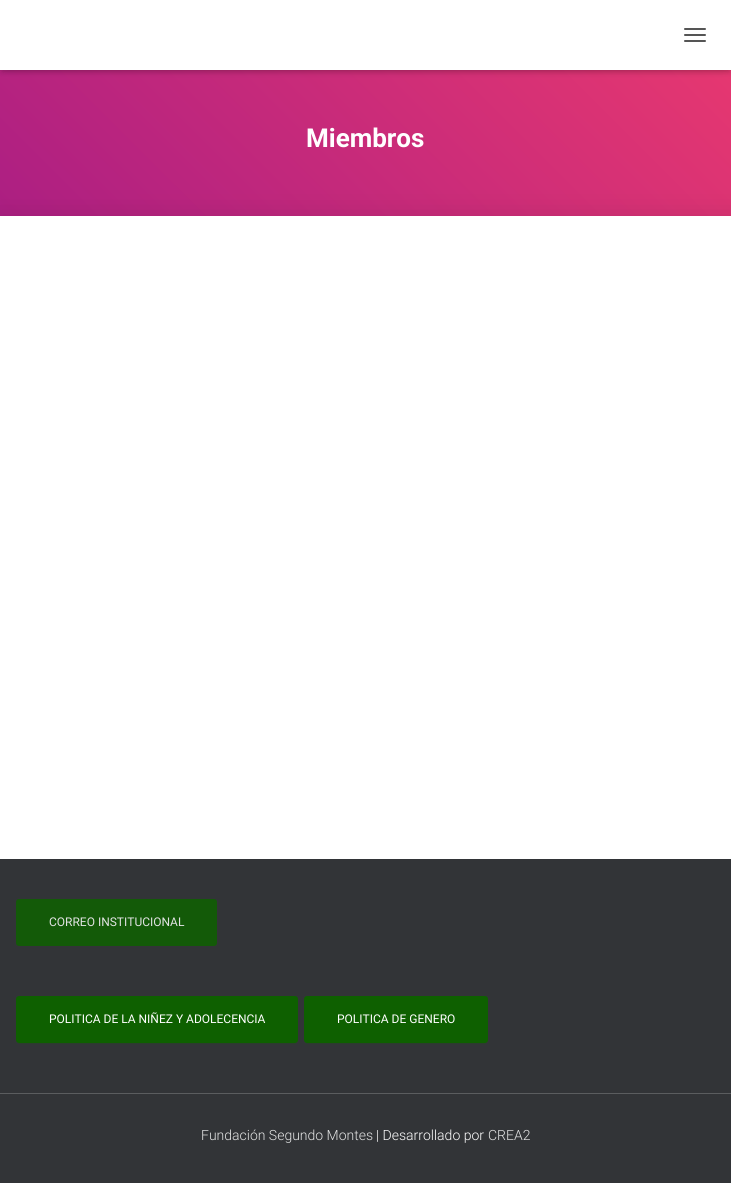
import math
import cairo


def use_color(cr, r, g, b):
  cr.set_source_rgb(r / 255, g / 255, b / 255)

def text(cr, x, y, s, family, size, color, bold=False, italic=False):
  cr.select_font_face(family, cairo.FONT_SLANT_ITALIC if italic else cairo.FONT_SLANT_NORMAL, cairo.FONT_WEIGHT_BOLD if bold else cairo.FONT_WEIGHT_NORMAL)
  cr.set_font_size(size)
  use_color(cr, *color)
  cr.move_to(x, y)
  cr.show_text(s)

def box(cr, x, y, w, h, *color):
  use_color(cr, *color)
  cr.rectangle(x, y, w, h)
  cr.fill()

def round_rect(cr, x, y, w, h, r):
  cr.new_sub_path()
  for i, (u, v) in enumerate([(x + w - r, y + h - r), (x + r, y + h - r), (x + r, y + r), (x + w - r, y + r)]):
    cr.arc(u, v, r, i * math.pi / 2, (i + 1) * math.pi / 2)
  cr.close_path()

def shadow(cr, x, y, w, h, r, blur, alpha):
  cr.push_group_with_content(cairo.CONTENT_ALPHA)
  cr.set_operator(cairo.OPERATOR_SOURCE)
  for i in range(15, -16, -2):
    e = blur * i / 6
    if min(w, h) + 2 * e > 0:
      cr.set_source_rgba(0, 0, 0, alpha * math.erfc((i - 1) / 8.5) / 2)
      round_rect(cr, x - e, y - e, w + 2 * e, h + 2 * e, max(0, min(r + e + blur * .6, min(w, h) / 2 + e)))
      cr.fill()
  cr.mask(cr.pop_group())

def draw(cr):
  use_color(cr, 255, 255, 255)
  cr.paint()
  gradient = cairo.LinearGradient(114, 390, 617, -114)
  gradient.add_color_stop_rgba(0, 0.659, 0.114, 0.518, 1)
  gradient.add_color_stop_rgba(1, 0.918, 0.224, 0.435, 1)
  cr.set_source(gradient)
  cr.rectangle(0, 70, 731, 146)
  cr.fill()
  use_color(cr, 0, 0, 0)
  shadow(cr, 2, 6, 727, 66, 0, 2.5, 0.1)
  shadow(cr, 0, 1, 731, 70, 0, 5, 0.12)
  shadow(cr, 6, 7, 719, 58, 0, 5, 0.42)
  box(cr, 0, 0, 731, 70, 255, 255, 255)
  use_color(cr, 85, 85, 85)
  round_rect(cr, 684, 28, 22, 2, 1)
  cr.fill()
  round_rect(cr, 684, 34, 22, 2, 1)
  cr.fill()
  round_rect(cr, 684, 40, 22, 2, 1)
  cr.fill()
  use_color(cr, 0, 0, 0)
  shadow(cr, -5, 217, 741, 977, 0, 15, 0.12)
  box(cr, 0, 216, 731, 643, 255, 255, 255)
  box(cr, 0, 859, 731, 324, 50, 52, 55)
  use_color(cr, 19, 90, 8)
  round_rect(cr, 16, 899, 201, 47, 3)
  cr.fill()
  use_color(cr, 14, 96, 0)
  shadow(cr, 18, 1001, 278, 43, 1, 0.5, 0.2)
  use_color(cr, 14, 96, 0)
  round_rect(cr, 16, 996, 282, 47, 3)
  cr.fill()
  use_color(cr, 14, 96, 0)
  shadow(cr, 306, 1001, 180, 43, 1, 0.5, 0.2)
  use_color(cr, 14, 96, 0)
  round_rect(cr, 304, 996, 184, 47, 3)
  cr.fill()
  box(cr, 0, 1093, 731, 1, 91, 93, 95)
  text(cr, 306, 147, "Miembros", "Roboto", 26, (255, 255, 255), bold=True)
  text(cr, 49, 926, "CORREO INSTITUCIONAL", "Roboto", 12, (226, 227, 227))
  text(cr, 49, 1023, "POLITICA DE LA NIÑEZ Y ADOLECENCIA", "Roboto", 12, (255, 255, 255))
  text(cr, 337, 1023, "POLITICA DE GENERO", "Roboto", 12, (255, 255, 255))
  text(cr, 201, 1140, "Fundación Segundo Montes", "Roboto Light", 14, (226, 227, 227))
  text(cr, 376, 1140, "| Desarrollado por", "Roboto Light", 14, (255, 255, 255))
  text(cr, 488, 1140, "CREA2", "Roboto Light", 14, (226, 227, 227))


surface = cairo.ImageSurface(cairo.FORMAT_RGB24, 731, 1183)
cr = cairo.Context(surface)
options = cairo.FontOptions()
options.set_hint_metrics(cairo.HINT_METRICS_OFF)
options.set_hint_style(cairo.HINT_STYLE_NONE)
cr.set_font_options(options)
cr.set_miter_limit(4)
draw(cr)
surface.write_to_png("out.png")
